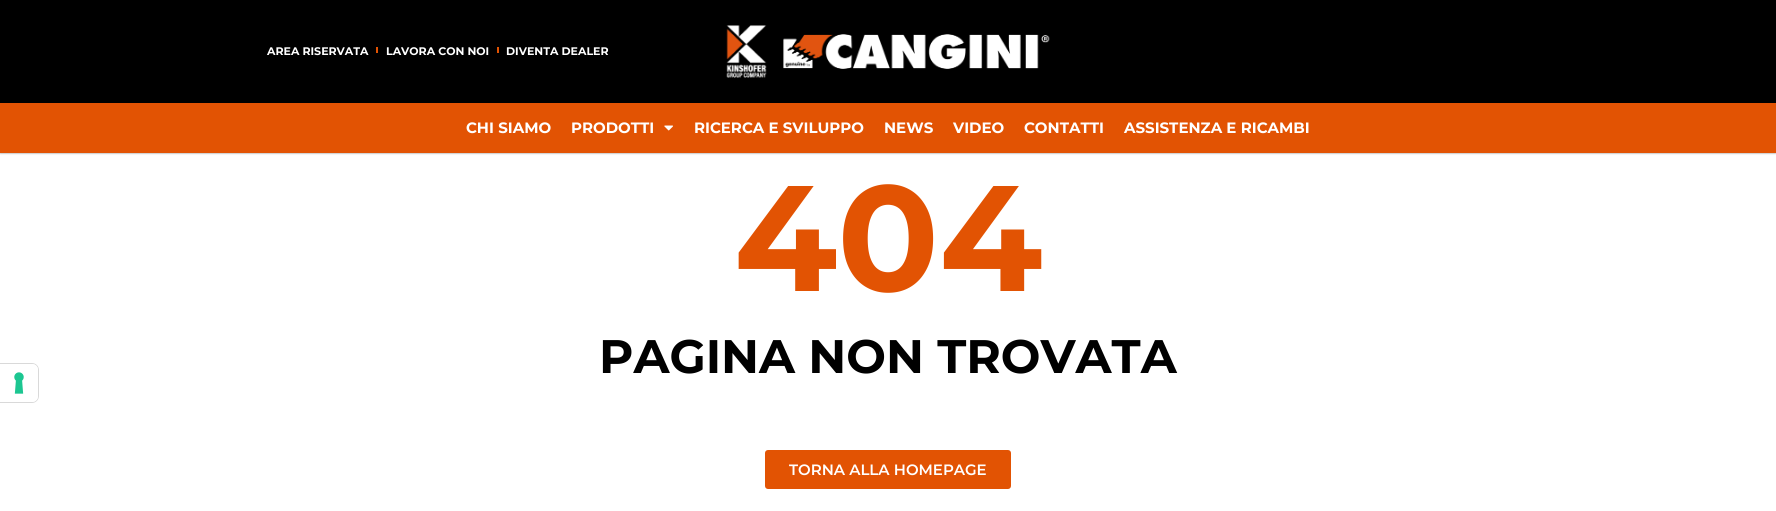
import math
import cairo


def use_color(cr, r, g, b):
  cr.set_source_rgb(r / 255, g / 255, b / 255)

def text(cr, x, y, s, family, size, color, bold=False, italic=False):
  cr.select_font_face(family, cairo.FONT_SLANT_ITALIC if italic else cairo.FONT_SLANT_NORMAL, cairo.FONT_WEIGHT_BOLD if bold else cairo.FONT_WEIGHT_NORMAL)
  cr.set_font_size(size)
  use_color(cr, *color)
  cr.move_to(x, y)
  cr.show_text(s)

def box(cr, x, y, w, h, *color):
  use_color(cr, *color)
  cr.rectangle(x, y, w, h)
  cr.fill()

def round_rect(cr, x, y, w, h, r):
  cr.new_sub_path()
  for i, (u, v) in enumerate([(x + w - r, y + h - r), (x + r, y + h - r), (x + r, y + r), (x + w - r, y + r)]):
    cr.arc(u, v, r, i * math.pi / 2, (i + 1) * math.pi / 2)
  cr.close_path()

def shadow(cr, x, y, w, h, r, blur, alpha):
  cr.push_group_with_content(cairo.CONTENT_ALPHA)
  cr.set_operator(cairo.OPERATOR_SOURCE)
  for i in range(15, -16, -2):
    e = blur * i / 6
    if min(w, h) + 2 * e > 0:
      cr.set_source_rgba(0, 0, 0, alpha * math.erfc((i - 1) / 8.5) / 2)
      round_rect(cr, x - e, y - e, w + 2 * e, h + 2 * e, max(0, min(r + e + blur * .6, min(w, h) / 2 + e)))
      cr.fill()
  cr.mask(cr.pop_group())

def picture(cr, path, x, y, w, h):
  cr.save()
  cr.set_source_surface(cairo.ImageSurface.create_from_png(path), x, y)
  cr.rectangle(x, y, w, h)
  cr.fill()
  cr.restore()

def draw(cr):
  use_color(cr, 255, 255, 255)
  cr.paint()
  cr.new_path()
  cr.move_to(-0.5, 363.5)
  cr.line_to(32, 363.5)
  cr.curve_to(35.5, 363.5, 38.5, 366.5, 38.5, 370)
  cr.line_to(38.5, 396)
  cr.curve_to(38.5, 399.5, 35.5, 402.5, 32, 402.5)
  cr.line_to(-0.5, 402.5)
  cr.close_path()
  use_color(cr, 217, 217, 217)
  cr.set_line_width(1)
  cr.stroke()
  use_color(cr, 255, 255, 255)
  cr.new_path()
  cr.move_to(0, 364)
  cr.line_to(32, 364)
  cr.curve_to(35.5, 364, 38, 366.5, 38, 370)
  cr.line_to(38, 396)
  cr.curve_to(38, 399.5, 35.5, 402, 32, 402)
  cr.line_to(0, 402)
  cr.close_path()
  cr.fill()
  picture(cr, "img_01.png", 14, 372, 10, 22)
  box(cr, 0, 0, 1776, 103, 0, 0, 0)
  box(cr, 376, 47, 2, 6, 226, 83, 3)
  box(cr, 497, 47, 2, 6, 226, 83, 3)
  picture(cr, "img_02.png", 726, 25, 324, 53)
  use_color(cr, 0, 0, 0)
  shadow(cr, 0, 103, 1776, 50, 0, 1, 0.5)
  box(cr, 0, 103, 1776, 50, 226, 83, 3)
  picture(cr, "img_03.png", 664, 125, 9, 6)
  round_rect(cr, 765, 450, 246, 39, 3)
  cr.fill()
  text(cr, 267, 55, "AREA RISERVATA", "Montserrat", 11, (255, 255, 255), bold=True)
  text(cr, 386, 55, "LAVORA CON NOI", "Montserrat", 11, (255, 255, 255), bold=True)
  text(cr, 506, 55, "DIVENTA DEALER", "Montserrat", 11, (255, 255, 255), bold=True)
  text(cr, 466, 133, "CHI SIAMO", "Montserrat", 15, (255, 255, 255), bold=True)
  text(cr, 571, 133, "PRODOTTI", "Montserrat", 15, (255, 255, 255), bold=True)
  text(cr, 694, 133, "RICERCA E SVILUPPO", "Montserrat", 15, (255, 255, 255), bold=True)
  text(cr, 884, 133, "NEWS", "Montserrat", 15, (255, 255, 255), bold=True)
  text(cr, 953, 133, "VIDEO", "Montserrat", 15, (255, 255, 255), bold=True)
  text(cr, 1024, 133, "CONTATTI", "Montserrat", 15, (255, 255, 255), bold=True)
  text(cr, 1124, 133, "ASSISTENZA E RICAMBI", "Montserrat", 15, (255, 255, 255), bold=True)
  text(cr, 734, 291, "404", "Montserrat", 150, (226, 83, 3), bold=True)
  text(cr, 599, 373, "PAGINA NON TROVATA", "Montserrat", 47, (0, 0, 0), bold=True)
  text(cr, 789, 475, "TORNA ALLA HOMEPAGE", "Montserrat SemiBold", 15, (255, 255, 255))


surface = cairo.ImageSurface(cairo.FORMAT_RGB24, 1776, 511)
cr = cairo.Context(surface)
options = cairo.FontOptions()
options.set_hint_metrics(cairo.HINT_METRICS_OFF)
options.set_hint_style(cairo.HINT_STYLE_NONE)
cr.set_font_options(options)
cr.set_miter_limit(4)
draw(cr)
surface.write_to_png("out.png")
